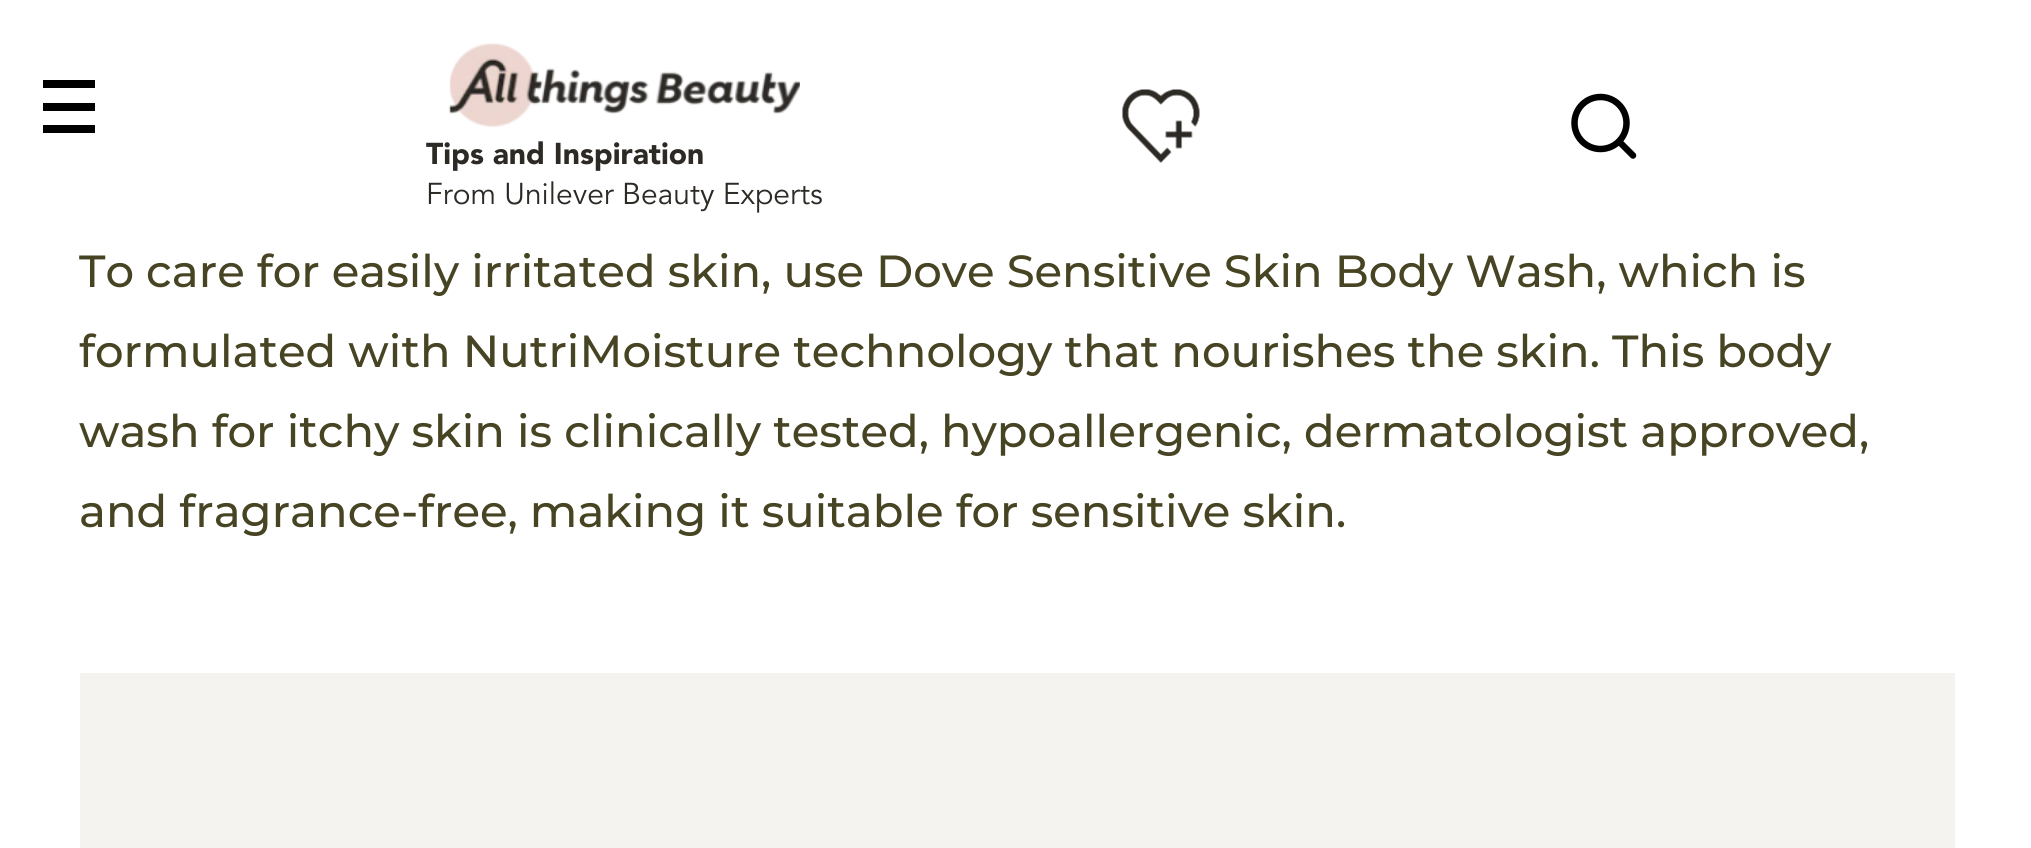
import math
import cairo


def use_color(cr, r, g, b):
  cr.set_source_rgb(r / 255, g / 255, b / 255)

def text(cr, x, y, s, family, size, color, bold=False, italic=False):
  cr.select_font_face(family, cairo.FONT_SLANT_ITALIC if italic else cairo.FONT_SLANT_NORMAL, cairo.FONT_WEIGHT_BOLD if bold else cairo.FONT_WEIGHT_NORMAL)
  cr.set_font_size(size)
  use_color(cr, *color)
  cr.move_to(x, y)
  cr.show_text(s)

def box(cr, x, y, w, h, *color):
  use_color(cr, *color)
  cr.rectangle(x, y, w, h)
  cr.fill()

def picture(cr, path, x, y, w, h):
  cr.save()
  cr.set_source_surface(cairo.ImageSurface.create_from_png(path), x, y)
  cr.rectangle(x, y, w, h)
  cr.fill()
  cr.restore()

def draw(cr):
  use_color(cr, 255, 255, 255)
  cr.paint()
  box(cr, 43, 80, 52, 8, 0, 0, 0)
  box(cr, 43, 103, 52, 8, 0, 0, 0)
  box(cr, 43, 125, 52, 8, 0, 0, 0)
  picture(cr, "img_01.png", 1122, 89, 78, 74)
  cr.arc(1600.5, 123, 26, 0, 2 * math.pi)
  cr.set_line_width(6.5)
  cr.stroke()
  cr.new_path()
  cr.move_to(1633, 155.5)
  cr.line_to(1619, 141.5)
  cr.set_line_cap(cairo.LINE_CAP_ROUND)
  cr.set_line_join(cairo.LINE_JOIN_ROUND)
  cr.stroke()
  picture(cr, "img_02.png", 448, 43, 352, 85)
  box(cr, 80, 673, 1875, 175, 245, 243, 239)
  text(cr, 426, 164, "Tips and Inspiration", "Avenir Black", 30, (45, 42, 38))
  text(cr, 426, 204, "From Unilever Beauty Experts", "Avenir", 30, (45, 42, 38))
  text(cr, 79, 287, "To care for easily irritated skin, use Dove Sensitive Skin Body Wash, which is", "Montserrat Medium", 45, (71, 68, 36))
  text(cr, 79, 367, "formulated with NutriMoisture technology that nourishes the skin. This body", "Montserrat Medium", 45, (71, 68, 36))
  text(cr, 79, 447, "wash for itchy skin is clinically tested, hypoallergenic, dermatologist approved,", "Montserrat Medium", 45, (71, 68, 36))
  text(cr, 79, 527, "and fragrance-free, making it suitable for sensitive skin.", "Montserrat Medium", 45, (71, 68, 36))


surface = cairo.ImageSurface(cairo.FORMAT_RGB24, 2031, 848)
cr = cairo.Context(surface)
options = cairo.FontOptions()
options.set_hint_metrics(cairo.HINT_METRICS_OFF)
options.set_hint_style(cairo.HINT_STYLE_NONE)
cr.set_font_options(options)
cr.set_miter_limit(4)
draw(cr)
surface.write_to_png("out.png")
